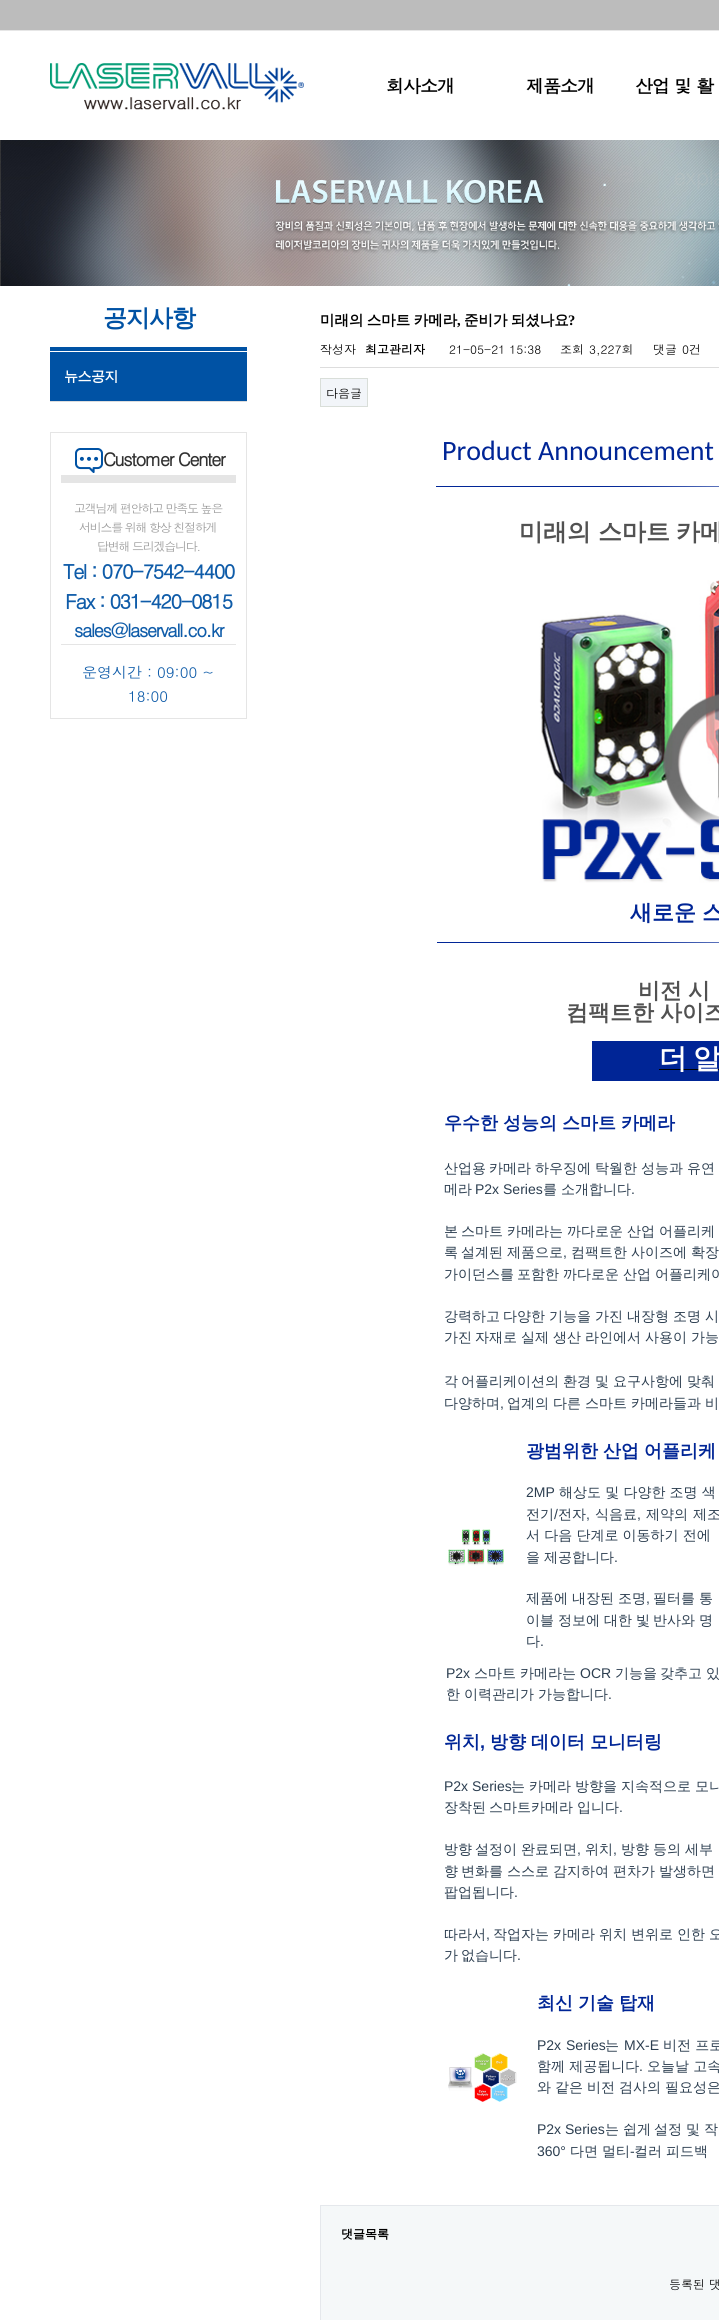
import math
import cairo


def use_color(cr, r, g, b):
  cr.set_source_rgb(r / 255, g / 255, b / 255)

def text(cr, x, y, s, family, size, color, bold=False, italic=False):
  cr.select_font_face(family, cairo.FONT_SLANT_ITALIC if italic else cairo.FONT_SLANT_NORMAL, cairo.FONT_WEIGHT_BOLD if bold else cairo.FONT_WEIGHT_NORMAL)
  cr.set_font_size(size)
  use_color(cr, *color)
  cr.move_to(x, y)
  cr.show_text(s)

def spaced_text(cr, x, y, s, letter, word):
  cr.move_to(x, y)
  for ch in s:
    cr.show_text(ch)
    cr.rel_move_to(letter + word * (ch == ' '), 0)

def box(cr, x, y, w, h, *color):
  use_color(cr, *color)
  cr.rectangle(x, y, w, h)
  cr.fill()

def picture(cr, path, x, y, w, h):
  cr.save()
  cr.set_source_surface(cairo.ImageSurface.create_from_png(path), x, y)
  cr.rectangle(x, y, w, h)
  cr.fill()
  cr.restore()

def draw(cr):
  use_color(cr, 255, 255, 255)
  cr.paint()
  box(cr, 0, 0, 719, 30, 188, 188, 188)
  box(cr, 0, 30, 719, 1, 230, 230, 230)
  picture(cr, "img_01.png", 50, 63, 254, 47)
  picture(cr, "img_02.png", 0, 140, 719, 146)
  box(cr, 50, 347, 197, 4, 0, 82, 164)
  box(cr, 50, 401, 197, 1, 221, 221, 221)
  box(cr, 50, 352, 197, 49, 0, 82, 164)
  cr.rectangle(50.5, 432.5, 196, 286)
  use_color(cr, 229, 229, 229)
  cr.set_line_width(1)
  cr.stroke()
  picture(cr, "img_03.png", 75, 448, 28, 25)
  box(cr, 61, 475, 175, 8, 229, 229, 229)
  box(cr, 61, 644, 175, 1, 229, 229, 229)
  box(cr, 320, 367, 399, 1, 221, 221, 221)
  use_color(cr, 242, 245, 249)
  cr.rectangle(320.5, 378.5, 47, 28)
  cr.fill_preserve()
  use_color(cr, 217, 222, 217)
  cr.stroke()
  picture(cr, "img_04.png", 436, 486, 283, 1)
  picture(cr, "img_05.png", 539, 580, 180, 303)
  picture(cr, "img_06.png", 437, 942, 282, 1)
  box(cr, 592, 1041, 127, 40, 0, 37, 150)
  box(cr, 659, 1069, 60, 1, 0, 0, 0)
  picture(cr, "img_07.png", 448, 1529, 56, 37)
  picture(cr, "img_08.png", 448, 2053, 69, 49)
  use_color(cr, 245, 248, 249)
  cr.rectangle(320.5, 2205.5, 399, 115)
  cr.fill_preserve()
  use_color(cr, 229, 232, 236)
  cr.stroke()
  cr.select_font_face("Dotum", cairo.FONT_SLANT_NORMAL, cairo.FONT_WEIGHT_BOLD)
  cr.set_font_size(18)
  use_color(cr, 0, 0, 0)
  spaced_text(cr, 386, 93, "회사소개", -1, 0)
  spaced_text(cr, 526, 93, "제품소개", -1, 0)
  spaced_text(cr, 635, 93, "산업 및 활", -1, 0)
  cr.select_font_face("WenQuanYi Zen Hei", cairo.FONT_SLANT_NORMAL, cairo.FONT_WEIGHT_BOLD)
  cr.set_font_size(24)
  use_color(cr, 0, 82, 164)
  spaced_text(cr, 103, 326, "공지사항", -1, 0)
  cr.set_font_size(14)
  use_color(cr, 255, 255, 255)
  spaced_text(cr, 64, 381, "뉴스공지", -0.5, 0)
  cr.select_font_face("Dotum", cairo.FONT_SLANT_NORMAL, cairo.FONT_WEIGHT_BOLD)
  cr.set_font_size(18)
  use_color(cr, 49, 49, 49)
  spaced_text(cr, 103, 466, "Customer Center", -1.35, 0)
  cr.select_font_face("Dotum")
  cr.set_font_size(12)
  use_color(cr, 153, 153, 153)
  spaced_text(cr, 74, 513, "고객님께 편안하고 만족도 높은", -1.25, 0)
  spaced_text(cr, 79, 532, "서비스를 위해 항상 친절하게", -1.25, 0)
  spaced_text(cr, 97, 551, "답변해 드리겠습니다.", -1.25, 0)
  cr.select_font_face("Dotum", cairo.FONT_SLANT_NORMAL, cairo.FONT_WEIGHT_BOLD)
  cr.set_font_size(20)
  use_color(cr, 15, 92, 169)
  spaced_text(cr, 63, 579, "Tel : 070-7542-4400", -1.5, 0)
  spaced_text(cr, 65, 609, "Fax : 031-420-0815", -1.5, 0)
  cr.set_font_size(18)
  spaced_text(cr, 74, 637, "sales@laservall.co.kr", -1.35, 0)
  text(cr, 82, 678, "운영시간 : 09:00 ~", "Dotum", 15, (15, 92, 169))
  text(cr, 128, 702, "18:00", "Dotum", 15, (15, 92, 169))
  cr.select_font_face("WenQuanYi Zen Hei", cairo.FONT_SLANT_NORMAL, cairo.FONT_WEIGHT_BOLD)
  cr.set_font_size(14.5)
  use_color(cr, 0, 0, 0)
  spaced_text(cr, 320, 325, "미래의 스마트 카메라", 0, -1)
  text(cr, 457, 325, ",", "Liberation Serif", 14.5, (0, 0, 0), bold=True)
  cr.select_font_face("WenQuanYi Zen Hei", cairo.FONT_SLANT_NORMAL, cairo.FONT_WEIGHT_BOLD)
  spaced_text(cr, 464, 325, "준비가 되셨나요", 0, -1)
  text(cr, 568, 325, "?", "Liberation Serif", 14.5, (0, 0, 0), bold=True)
  text(cr, 320, 354, "작성자", "Dotum", 12, (0, 0, 0))
  text(cr, 365, 354, "최고관리자", "Dotum", 12, (0, 0, 0), bold=True)
  text(cr, 449, 354, "21-05-21 15:38", "Dotum", 12, (0, 0, 0))
  text(cr, 560, 354, "조회", "Dotum", 12, (0, 0, 0))
  text(cr, 589, 354, "3,227회", "Dotum", 12, (0, 0, 0))
  text(cr, 653, 354, "댓글", "Dotum", 12, (0, 0, 0))
  text(cr, 682, 354, "0건", "Dotum", 12, (0, 0, 0))
  text(cr, 326, 398, "다음글", "Dotum", 12, (0, 0, 0))
  text(cr, 442, 460, "Product Announcement", "Carlito", 28, (0, 37, 150))
  text(cr, 519, 540, "미래의", "WenQuanYi Zen Hei", 24, (81, 81, 81), bold=True)
  text(cr, 598, 540, "스마트", "WenQuanYi Zen Hei", 24, (81, 81, 81), bold=True)
  text(cr, 676, 540, "카메", "WenQuanYi Zen Hei", 24, (81, 81, 81), bold=True)
  text(cr, 630, 920, "새로운", "WenQuanYi Zen Hei", 22, (0, 37, 150), bold=True)
  text(cr, 702, 920, "스", "WenQuanYi Zen Hei", 22, (0, 37, 150), bold=True)
  text(cr, 638, 998, "비전", "WenQuanYi Zen Hei", 22, (81, 81, 81), bold=True)
  text(cr, 688, 998, "시", "WenQuanYi Zen Hei", 22, (81, 81, 81), bold=True)
  text(cr, 566, 1020, "컴팩트한", "WenQuanYi Zen Hei", 22, (81, 81, 81), bold=True)
  text(cr, 660, 1020, "사이즈", "WenQuanYi Zen Hei", 22, (81, 81, 81), bold=True)
  text(cr, 659, 1068, "더", "WenQuanYi Zen Hei", 28, (255, 255, 255), bold=True)
  text(cr, 693, 1068, "알", "WenQuanYi Zen Hei", 28, (255, 255, 255), bold=True)
  text(cr, 444, 1129, "우수한", "WenQuanYi Zen Hei", 18, (0, 37, 150), bold=True)
  text(cr, 503, 1129, "성능의", "WenQuanYi Zen Hei", 18, (0, 37, 150), bold=True)
  text(cr, 562, 1129, "스마트", "WenQuanYi Zen Hei", 18, (0, 37, 150), bold=True)
  text(cr, 621, 1129, "카메라", "WenQuanYi Zen Hei", 18, (0, 37, 150), bold=True)
  text(cr, 444, 1173, "산업용", "WenQuanYi Zen Hei Medium", 14, (44, 62, 80))
  text(cr, 489, 1173, "카메라", "WenQuanYi Zen Hei Medium", 14, (44, 62, 80))
  text(cr, 535, 1173, "하우징에", "WenQuanYi Zen Hei Medium", 14, (44, 62, 80))
  text(cr, 595, 1173, "탁월한", "WenQuanYi Zen Hei Medium", 14, (44, 62, 80))
  text(cr, 641, 1173, "성능과", "WenQuanYi Zen Hei Medium", 14, (44, 62, 80))
  text(cr, 687, 1173, "유연", "WenQuanYi Zen Hei Medium", 14, (44, 62, 80))
  text(cr, 444, 1194, "메라", "WenQuanYi Zen Hei Medium", 14, (44, 62, 80))
  text(cr, 475, 1194, "P2x Series", "Liberation Sans", 14, (44, 62, 80))
  text(cr, 543, 1194, "를", "WenQuanYi Zen Hei Medium", 14, (44, 62, 80))
  text(cr, 561, 1194, "소개합니다", "WenQuanYi Zen Hei Medium", 14, (44, 62, 80))
  text(cr, 631, 1194, ".", "Liberation Sans", 14, (44, 62, 80))
  text(cr, 444, 1236, "본", "WenQuanYi Zen Hei Medium", 14, (44, 62, 80))
  text(cr, 461, 1236, "스마트", "WenQuanYi Zen Hei Medium", 14, (44, 62, 80))
  text(cr, 507, 1236, "카메라는", "WenQuanYi Zen Hei Medium", 14, (44, 62, 80))
  text(cr, 567, 1236, "까다로운", "WenQuanYi Zen Hei Medium", 14, (44, 62, 80))
  text(cr, 627, 1236, "산업", "WenQuanYi Zen Hei Medium", 14, (44, 62, 80))
  text(cr, 659, 1236, "어플리케", "WenQuanYi Zen Hei Medium", 14, (44, 62, 80))
  text(cr, 444, 1257, "록", "WenQuanYi Zen Hei Medium", 14, (44, 62, 80))
  text(cr, 461, 1257, "설계된", "WenQuanYi Zen Hei Medium", 14, (44, 62, 80))
  text(cr, 507, 1257, "제품으로", "WenQuanYi Zen Hei Medium", 14, (44, 62, 80))
  text(cr, 563, 1257, ",", "Liberation Sans", 14, (44, 62, 80))
  text(cr, 571, 1257, "컴팩트한", "WenQuanYi Zen Hei Medium", 14, (44, 62, 80))
  text(cr, 631, 1257, "사이즈에", "WenQuanYi Zen Hei Medium", 14, (44, 62, 80))
  text(cr, 691, 1257, "확장", "WenQuanYi Zen Hei Medium", 14, (44, 62, 80))
  text(cr, 444, 1279, "가이던스를", "WenQuanYi Zen Hei Medium", 14, (44, 62, 80))
  text(cr, 517, 1279, "포함한", "WenQuanYi Zen Hei Medium", 14, (44, 62, 80))
  text(cr, 563, 1279, "까다로운", "WenQuanYi Zen Hei Medium", 14, (44, 62, 80))
  text(cr, 623, 1279, "산업", "WenQuanYi Zen Hei Medium", 14, (44, 62, 80))
  text(cr, 655, 1279, "어플리케이", "WenQuanYi Zen Hei Medium", 14, (44, 62, 80))
  text(cr, 444, 1321, "강력하고", "WenQuanYi Zen Hei Medium", 14, (44, 62, 80))
  text(cr, 503, 1321, "다양한", "WenQuanYi Zen Hei Medium", 14, (44, 62, 80))
  text(cr, 549, 1321, "기능을", "WenQuanYi Zen Hei Medium", 14, (44, 62, 80))
  text(cr, 595, 1321, "가진", "WenQuanYi Zen Hei Medium", 14, (44, 62, 80))
  text(cr, 627, 1321, "내장형", "WenQuanYi Zen Hei Medium", 14, (44, 62, 80))
  text(cr, 673, 1321, "조명", "WenQuanYi Zen Hei Medium", 14, (44, 62, 80))
  text(cr, 705, 1321, "시", "WenQuanYi Zen Hei Medium", 14, (44, 62, 80))
  text(cr, 444, 1342, "가진", "WenQuanYi Zen Hei Medium", 14, (44, 62, 80))
  text(cr, 475, 1342, "자재로", "WenQuanYi Zen Hei Medium", 14, (44, 62, 80))
  text(cr, 521, 1342, "실제", "WenQuanYi Zen Hei Medium", 14, (44, 62, 80))
  text(cr, 553, 1342, "생산", "WenQuanYi Zen Hei Medium", 14, (44, 62, 80))
  text(cr, 585, 1342, "라인에서", "WenQuanYi Zen Hei Medium", 14, (44, 62, 80))
  text(cr, 645, 1342, "사용이", "WenQuanYi Zen Hei Medium", 14, (44, 62, 80))
  text(cr, 691, 1342, "가능", "WenQuanYi Zen Hei Medium", 14, (44, 62, 80))
  text(cr, 444, 1386, "각", "WenQuanYi Zen Hei Medium", 14, (44, 62, 80))
  text(cr, 461, 1386, "어플리케이션의", "WenQuanYi Zen Hei Medium", 14, (44, 62, 80))
  text(cr, 563, 1386, "환경", "WenQuanYi Zen Hei Medium", 14, (44, 62, 80))
  text(cr, 595, 1386, "및", "WenQuanYi Zen Hei Medium", 14, (44, 62, 80))
  text(cr, 613, 1386, "요구사항에", "WenQuanYi Zen Hei Medium", 14, (44, 62, 80))
  text(cr, 687, 1386, "맞춰", "WenQuanYi Zen Hei Medium", 14, (44, 62, 80))
  text(cr, 444, 1408, "다양하며", "WenQuanYi Zen Hei Medium", 14, (44, 62, 80))
  text(cr, 500, 1408, ",", "Liberation Sans", 14, (44, 62, 80))
  text(cr, 507, 1408, "업계의", "WenQuanYi Zen Hei Medium", 14, (44, 62, 80))
  text(cr, 553, 1408, "다른", "WenQuanYi Zen Hei Medium", 14, (44, 62, 80))
  text(cr, 585, 1408, "스마트", "WenQuanYi Zen Hei Medium", 14, (44, 62, 80))
  text(cr, 631, 1408, "카메라들과", "WenQuanYi Zen Hei Medium", 14, (44, 62, 80))
  text(cr, 705, 1408, "비", "WenQuanYi Zen Hei Medium", 14, (44, 62, 80))
  text(cr, 526, 1457, "광범위한", "WenQuanYi Zen Hei", 18, (0, 37, 150), bold=True)
  text(cr, 603, 1457, "산업", "WenQuanYi Zen Hei", 18, (0, 37, 150), bold=True)
  text(cr, 644, 1457, "어플리케", "WenQuanYi Zen Hei", 18, (0, 37, 150), bold=True)
  text(cr, 526, 1497, "2MP", "Liberation Sans", 14, (44, 62, 80))
  text(cr, 559, 1497, "해상도 및 다양한 조명 색", "WenQuanYi Zen Hei Medium", 14, (44, 62, 80))
  text(cr, 526, 1519, "전기", "WenQuanYi Zen Hei Medium", 14, (44, 62, 80))
  text(cr, 554, 1519, "/", "Liberation Sans", 14, (44, 62, 80))
  text(cr, 558, 1519, "전자", "WenQuanYi Zen Hei Medium", 14, (44, 62, 80))
  text(cr, 586, 1519, ",", "Liberation Sans", 14, (44, 62, 80))
  text(cr, 595, 1519, "식음료", "WenQuanYi Zen Hei Medium", 14, (44, 62, 80))
  text(cr, 637, 1519, ",", "Liberation Sans", 14, (44, 62, 80))
  text(cr, 646, 1519, "제약의", "WenQuanYi Zen Hei Medium", 14, (44, 62, 80))
  text(cr, 693, 1519, "제조", "WenQuanYi Zen Hei Medium", 14, (44, 62, 80))
  text(cr, 526, 1540, "서 다음 단계로 이동하기 전에", "WenQuanYi Zen Hei Medium", 14, (44, 62, 80))
  text(cr, 526, 1562, "을", "WenQuanYi Zen Hei Medium", 14, (44, 62, 80))
  text(cr, 544, 1562, "제공합니다", "WenQuanYi Zen Hei Medium", 14, (44, 62, 80))
  text(cr, 614, 1562, ".", "Liberation Sans", 14, (44, 62, 80))
  text(cr, 526, 1603, "제품에", "WenQuanYi Zen Hei Medium", 14, (44, 62, 80))
  text(cr, 572, 1603, "내장된", "WenQuanYi Zen Hei Medium", 14, (44, 62, 80))
  text(cr, 618, 1603, "조명", "WenQuanYi Zen Hei Medium", 14, (44, 62, 80))
  text(cr, 646, 1603, ",", "Liberation Sans", 14, (44, 62, 80))
  text(cr, 653, 1603, "필터를", "WenQuanYi Zen Hei Medium", 14, (44, 62, 80))
  text(cr, 699, 1603, "통", "WenQuanYi Zen Hei Medium", 14, (44, 62, 80))
  text(cr, 526, 1625, "이블", "WenQuanYi Zen Hei Medium", 14, (44, 62, 80))
  text(cr, 558, 1625, "정보에", "WenQuanYi Zen Hei Medium", 14, (44, 62, 80))
  text(cr, 604, 1625, "대한", "WenQuanYi Zen Hei Medium", 14, (44, 62, 80))
  text(cr, 636, 1625, "빛", "WenQuanYi Zen Hei Medium", 14, (44, 62, 80))
  text(cr, 653, 1625, "반사와", "WenQuanYi Zen Hei Medium", 14, (44, 62, 80))
  text(cr, 699, 1625, "명", "WenQuanYi Zen Hei Medium", 14, (44, 62, 80))
  text(cr, 526, 1646, "다", "WenQuanYi Zen Hei Medium", 14, (44, 62, 80))
  text(cr, 540, 1646, ".", "Liberation Sans", 14, (44, 62, 80))
  text(cr, 446, 1678, "P2x", "Liberation Sans", 14, (44, 62, 80))
  text(cr, 474, 1678, "스마트", "WenQuanYi Zen Hei Medium", 14, (44, 62, 80))
  text(cr, 520, 1678, "카메라는", "WenQuanYi Zen Hei Medium", 14, (44, 62, 80))
  text(cr, 580, 1678, "OCR", "Liberation Sans", 14, (44, 62, 80))
  text(cr, 615, 1678, "기능을", "WenQuanYi Zen Hei Medium", 14, (44, 62, 80))
  text(cr, 660, 1678, "갖추고", "WenQuanYi Zen Hei Medium", 14, (44, 62, 80))
  text(cr, 706, 1678, "있", "WenQuanYi Zen Hei Medium", 14, (44, 62, 80))
  text(cr, 446, 1699, "한", "WenQuanYi Zen Hei Medium", 14, (44, 62, 80))
  text(cr, 464, 1699, "이력관리가", "WenQuanYi Zen Hei Medium", 14, (44, 62, 80))
  text(cr, 538, 1699, "가능합니다", "WenQuanYi Zen Hei Medium", 14, (44, 62, 80))
  text(cr, 608, 1699, ".", "Liberation Sans", 14, (44, 62, 80))
  text(cr, 444, 1748, "위치", "WenQuanYi Zen Hei", 18, (0, 37, 150), bold=True)
  text(cr, 480, 1748, ",", "Liberation Sans", 18, (0, 37, 150), bold=True)
  text(cr, 490, 1748, "방향", "WenQuanYi Zen Hei", 18, (0, 37, 150), bold=True)
  text(cr, 531, 1748, "데이터", "WenQuanYi Zen Hei", 18, (0, 37, 150), bold=True)
  text(cr, 590, 1748, "모니터링", "WenQuanYi Zen Hei", 18, (0, 37, 150), bold=True)
  text(cr, 444, 1791, "P2x Series", "Liberation Sans", 14, (44, 62, 80))
  text(cr, 511, 1791, "는", "WenQuanYi Zen Hei Medium", 14, (44, 62, 80))
  text(cr, 529, 1791, "카메라", "WenQuanYi Zen Hei Medium", 14, (44, 62, 80))
  text(cr, 575, 1791, "방향을", "WenQuanYi Zen Hei Medium", 14, (44, 62, 80))
  text(cr, 621, 1791, "지속적으로", "WenQuanYi Zen Hei Medium", 14, (44, 62, 80))
  text(cr, 695, 1791, "모니", "WenQuanYi Zen Hei Medium", 14, (44, 62, 80))
  text(cr, 444, 1812, "장착된", "WenQuanYi Zen Hei Medium", 14, (44, 62, 80))
  text(cr, 489, 1812, "스마트카메라", "WenQuanYi Zen Hei Medium", 14, (44, 62, 80))
  text(cr, 577, 1812, "입니다", "WenQuanYi Zen Hei Medium", 14, (44, 62, 80))
  text(cr, 619, 1812, ".", "Liberation Sans", 14, (44, 62, 80))
  text(cr, 444, 1854, "방향", "WenQuanYi Zen Hei Medium", 14, (44, 62, 80))
  text(cr, 475, 1854, "설정이", "WenQuanYi Zen Hei Medium", 14, (44, 62, 80))
  text(cr, 521, 1854, "완료되면", "WenQuanYi Zen Hei Medium", 14, (44, 62, 80))
  text(cr, 577, 1854, ",", "Liberation Sans", 14, (44, 62, 80))
  text(cr, 585, 1854, "위치", "WenQuanYi Zen Hei Medium", 14, (44, 62, 80))
  text(cr, 613, 1854, ",", "Liberation Sans", 14, (44, 62, 80))
  text(cr, 621, 1854, "방향", "WenQuanYi Zen Hei Medium", 14, (44, 62, 80))
  text(cr, 653, 1854, "등의", "WenQuanYi Zen Hei Medium", 14, (44, 62, 80))
  text(cr, 685, 1854, "세부", "WenQuanYi Zen Hei Medium", 14, (44, 62, 80))
  text(cr, 444, 1876, "향", "WenQuanYi Zen Hei Medium", 14, (44, 62, 80))
  text(cr, 461, 1876, "변화를", "WenQuanYi Zen Hei Medium", 14, (44, 62, 80))
  text(cr, 507, 1876, "스스로", "WenQuanYi Zen Hei Medium", 14, (44, 62, 80))
  text(cr, 553, 1876, "감지하여", "WenQuanYi Zen Hei Medium", 14, (44, 62, 80))
  text(cr, 613, 1876, "편차가", "WenQuanYi Zen Hei Medium", 14, (44, 62, 80))
  text(cr, 659, 1876, "발생하면", "WenQuanYi Zen Hei Medium", 14, (44, 62, 80))
  text(cr, 444, 1897, "팝업됩니다", "WenQuanYi Zen Hei Medium", 14, (44, 62, 80))
  text(cr, 514, 1897, ".", "Liberation Sans", 14, (44, 62, 80))
  text(cr, 444, 1939, "따라서", "WenQuanYi Zen Hei Medium", 14, (44, 62, 80))
  text(cr, 486, 1939, ",", "Liberation Sans", 14, (44, 62, 80))
  text(cr, 493, 1939, "작업자는", "WenQuanYi Zen Hei Medium", 14, (44, 62, 80))
  text(cr, 553, 1939, "카메라", "WenQuanYi Zen Hei Medium", 14, (44, 62, 80))
  text(cr, 599, 1939, "위치", "WenQuanYi Zen Hei Medium", 14, (44, 62, 80))
  text(cr, 631, 1939, "변위로", "WenQuanYi Zen Hei Medium", 14, (44, 62, 80))
  text(cr, 677, 1939, "인한", "WenQuanYi Zen Hei Medium", 14, (44, 62, 80))
  text(cr, 709, 1939, "오", "WenQuanYi Zen Hei Medium", 14, (44, 62, 80))
  text(cr, 444, 1960, "가", "WenQuanYi Zen Hei Medium", 14, (44, 62, 80))
  text(cr, 461, 1960, "없습니다", "WenQuanYi Zen Hei Medium", 14, (44, 62, 80))
  text(cr, 517, 1960, ".", "Liberation Sans", 14, (44, 62, 80))
  text(cr, 537, 2009, "최신", "WenQuanYi Zen Hei", 18, (0, 37, 150), bold=True)
  text(cr, 578, 2009, "기술", "WenQuanYi Zen Hei", 18, (0, 37, 150), bold=True)
  text(cr, 619, 2009, "탑재", "WenQuanYi Zen Hei", 18, (0, 37, 150), bold=True)
  cr.select_font_face("Liberation Sans")
  cr.set_font_size(14)
  use_color(cr, 44, 62, 80)
  spaced_text(cr, 537, 2050, "P2x Series", 0, 1)
  text(cr, 605, 2050, "는", "WenQuanYi Zen Hei Medium", 14, (44, 62, 80))
  text(cr, 624, 2050, "MX-E", "Liberation Sans", 14, (44, 62, 80))
  text(cr, 663, 2050, "비전 프로", "WenQuanYi Zen Hei Medium", 14, (44, 62, 80))
  text(cr, 537, 2071, "함께 제공됩니다", "WenQuanYi Zen Hei Medium", 14, (44, 62, 80))
  text(cr, 639, 2071, ".", "Liberation Sans", 14, (44, 62, 80))
  text(cr, 647, 2071, "오늘날 고속", "WenQuanYi Zen Hei Medium", 14, (44, 62, 80))
  text(cr, 537, 2092, "와", "WenQuanYi Zen Hei Medium", 14, (44, 62, 80))
  text(cr, 555, 2092, "같은", "WenQuanYi Zen Hei Medium", 14, (44, 62, 80))
  text(cr, 587, 2092, "비전", "WenQuanYi Zen Hei Medium", 14, (44, 62, 80))
  text(cr, 619, 2092, "검사의", "WenQuanYi Zen Hei Medium", 14, (44, 62, 80))
  text(cr, 665, 2092, "필요성은", "WenQuanYi Zen Hei Medium", 14, (44, 62, 80))
  text(cr, 537, 2134, "P2x Series", "Liberation Sans", 14, (44, 62, 80))
  text(cr, 605, 2134, "는", "WenQuanYi Zen Hei Medium", 14, (44, 62, 80))
  text(cr, 623, 2134, "쉽게", "WenQuanYi Zen Hei Medium", 14, (44, 62, 80))
  text(cr, 654, 2134, "설정", "WenQuanYi Zen Hei Medium", 14, (44, 62, 80))
  text(cr, 686, 2134, "및", "WenQuanYi Zen Hei Medium", 14, (44, 62, 80))
  text(cr, 704, 2134, "작", "WenQuanYi Zen Hei Medium", 14, (44, 62, 80))
  text(cr, 537, 2156, "360°", "Liberation Sans", 14, (44, 62, 80))
  text(cr, 570, 2156, "다면", "WenQuanYi Zen Hei Medium", 14, (44, 62, 80))
  text(cr, 602, 2156, "멀티", "WenQuanYi Zen Hei Medium", 14, (44, 62, 80))
  text(cr, 630, 2156, "-", "Liberation Sans", 14, (44, 62, 80))
  text(cr, 634, 2156, "컬러", "WenQuanYi Zen Hei Medium", 14, (44, 62, 80))
  text(cr, 666, 2156, "피드백", "WenQuanYi Zen Hei Medium", 14, (44, 62, 80))
  text(cr, 341, 2238, "댓글목록", "WenQuanYi Zen Hei", 12, (0, 0, 0), bold=True)
  text(cr, 669, 2289, "등록된 댓", "Dotum", 12, (0, 0, 0))


surface = cairo.ImageSurface(cairo.FORMAT_RGB24, 719, 2320)
cr = cairo.Context(surface)
options = cairo.FontOptions()
options.set_hint_metrics(cairo.HINT_METRICS_OFF)
options.set_hint_style(cairo.HINT_STYLE_NONE)
cr.set_font_options(options)
cr.set_miter_limit(4)
draw(cr)
surface.write_to_png("out.png")
